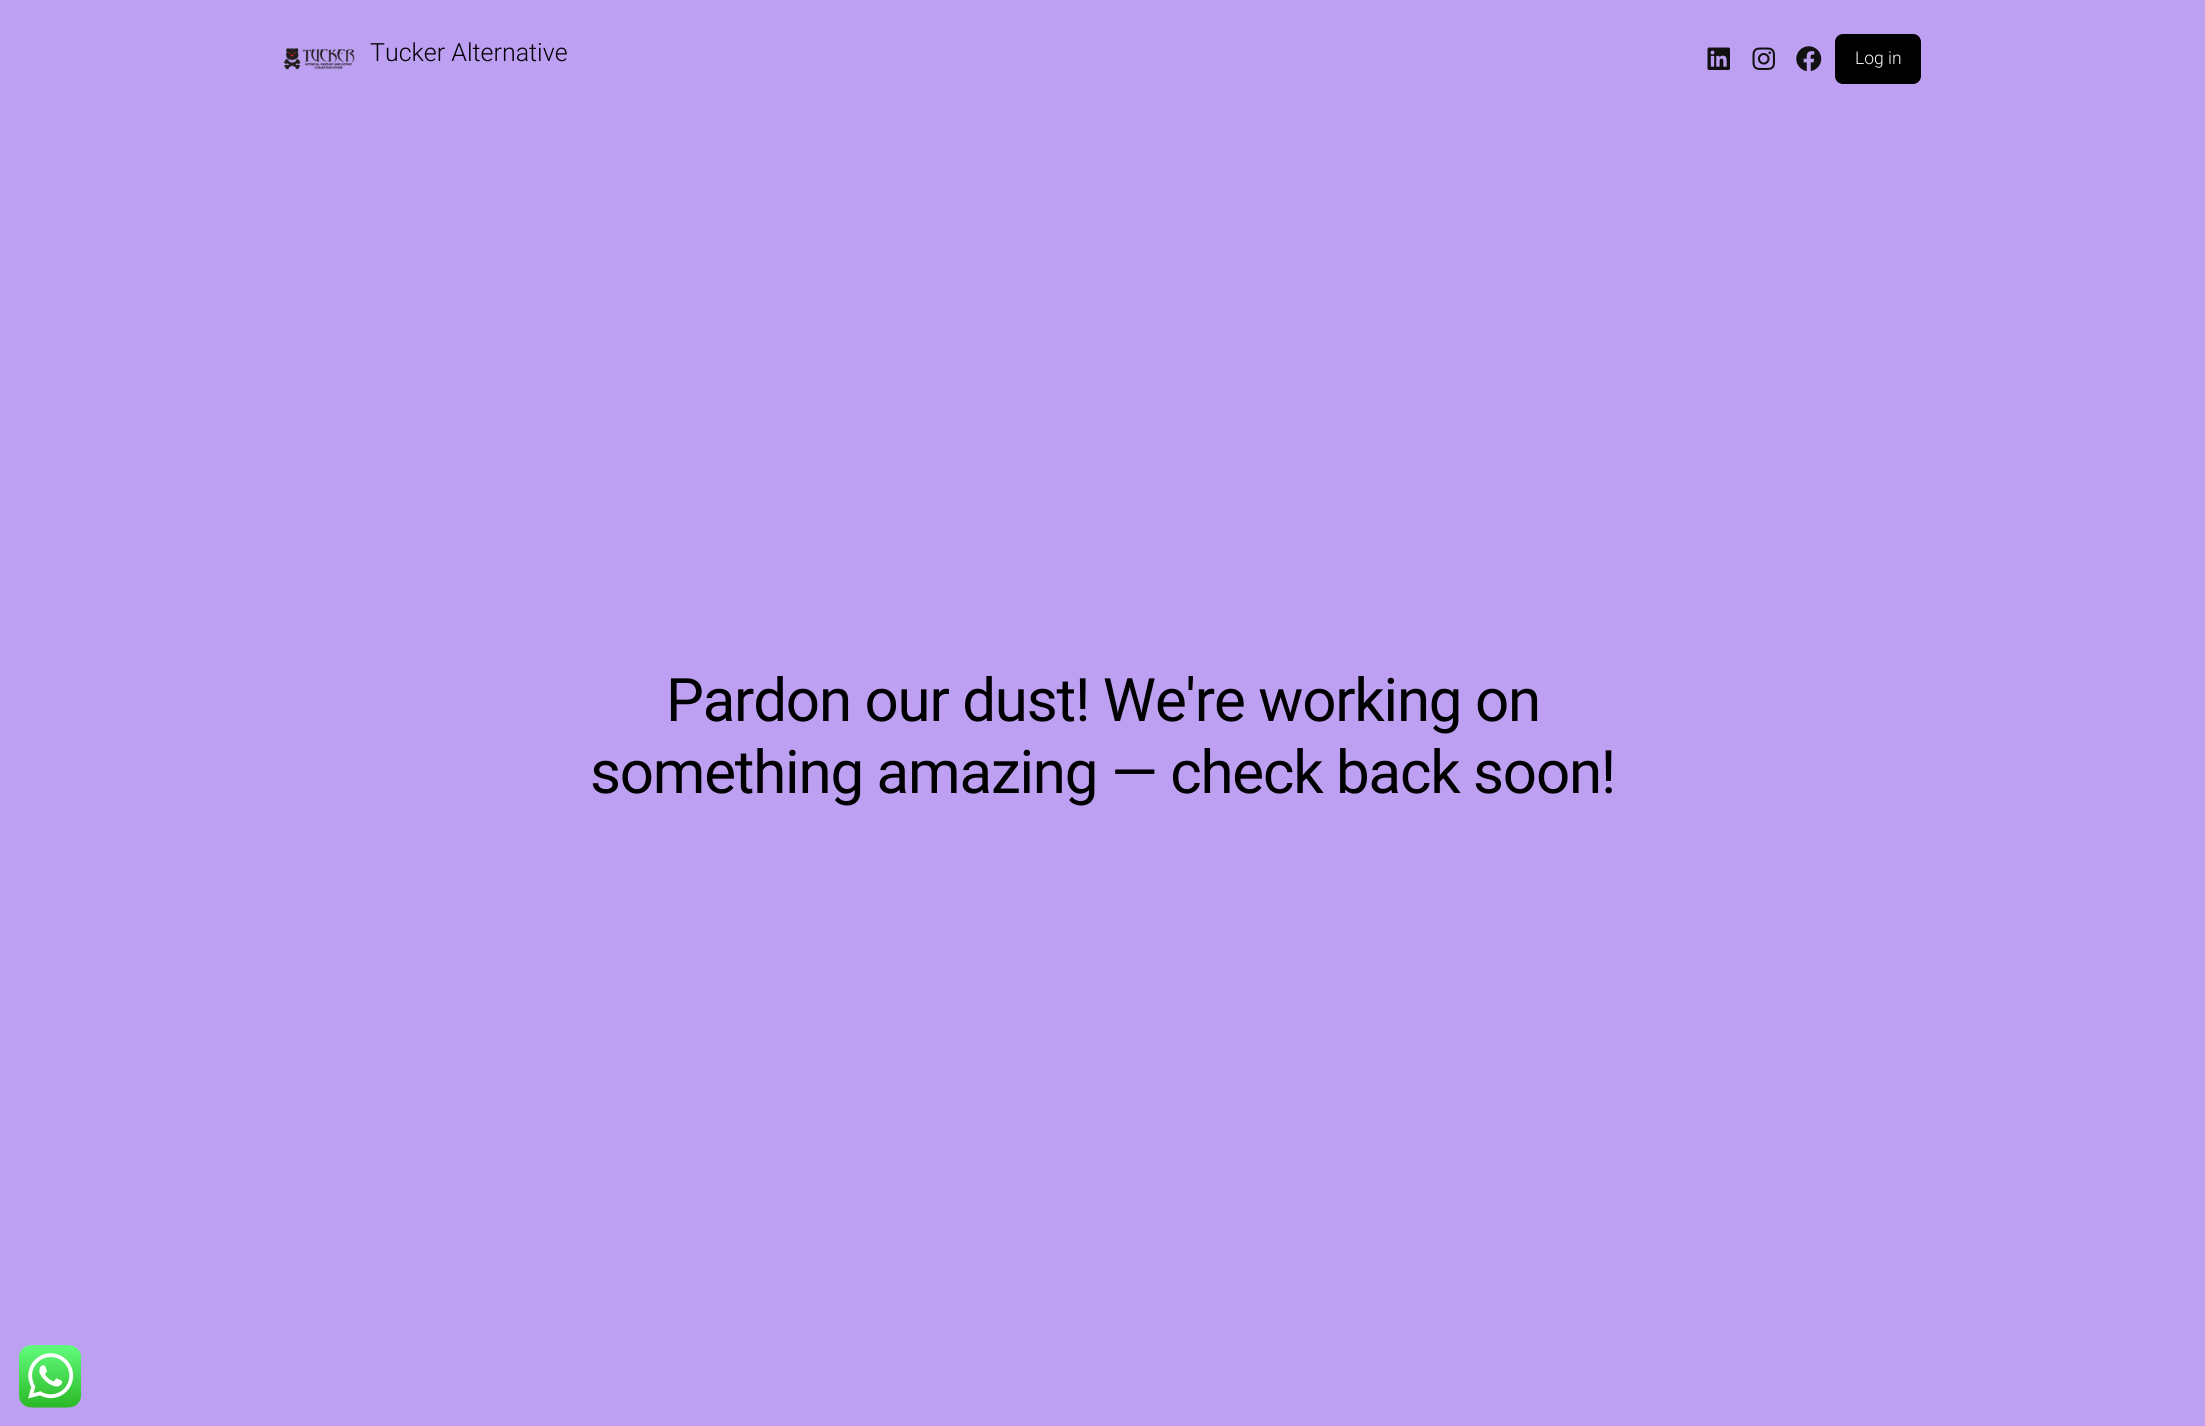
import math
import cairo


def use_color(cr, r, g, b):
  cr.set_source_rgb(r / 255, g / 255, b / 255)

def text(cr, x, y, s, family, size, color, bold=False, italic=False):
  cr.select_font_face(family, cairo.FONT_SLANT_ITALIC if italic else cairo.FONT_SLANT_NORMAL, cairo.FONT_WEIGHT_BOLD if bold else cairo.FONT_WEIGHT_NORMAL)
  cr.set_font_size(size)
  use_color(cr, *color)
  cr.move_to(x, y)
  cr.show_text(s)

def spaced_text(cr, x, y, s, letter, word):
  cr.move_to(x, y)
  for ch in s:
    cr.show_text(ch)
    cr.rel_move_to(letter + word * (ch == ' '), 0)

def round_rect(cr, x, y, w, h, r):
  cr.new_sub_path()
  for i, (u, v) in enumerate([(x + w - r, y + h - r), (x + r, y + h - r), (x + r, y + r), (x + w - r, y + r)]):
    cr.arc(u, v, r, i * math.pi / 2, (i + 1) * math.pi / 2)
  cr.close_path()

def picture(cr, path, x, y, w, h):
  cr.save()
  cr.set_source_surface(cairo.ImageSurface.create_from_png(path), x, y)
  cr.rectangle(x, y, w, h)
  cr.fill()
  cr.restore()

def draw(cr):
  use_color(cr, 190, 160, 242)
  cr.paint()
  picture(cr, "img_01.png", 283, 48, 72, 22)
  picture(cr, "img_02.png", 1707, 47, 23, 23)
  picture(cr, "img_03.png", 1752, 47, 23, 23)
  picture(cr, "img_04.png", 1796, 46, 26, 26)
  use_color(cr, 0, 0, 0)
  round_rect(cr, 1835, 34, 86, 50, 8)
  cr.fill()
  picture(cr, "img_05.png", 19, 1345, 62, 63)
  text(cr, 370, 61, "Tucker Alternative", "Roboto Light", 25, (0, 0, 0))
  text(cr, 1855, 64, "Log in", "Roboto Light", 17.5, (255, 255, 255))
  cr.select_font_face("Roboto")
  cr.set_font_size(60)
  use_color(cr, 0, 0, 0)
  spaced_text(cr, 666, 721, "Pardon our dust! We're working on", -1.2, 0)
  spaced_text(cr, 590, 793, "something amazing — check back soon!", -1.2, 0)


surface = cairo.ImageSurface(cairo.FORMAT_RGB24, 2205, 1426)
cr = cairo.Context(surface)
options = cairo.FontOptions()
options.set_hint_metrics(cairo.HINT_METRICS_OFF)
options.set_hint_style(cairo.HINT_STYLE_NONE)
cr.set_font_options(options)
cr.set_miter_limit(4)
draw(cr)
surface.write_to_png("out.png")
